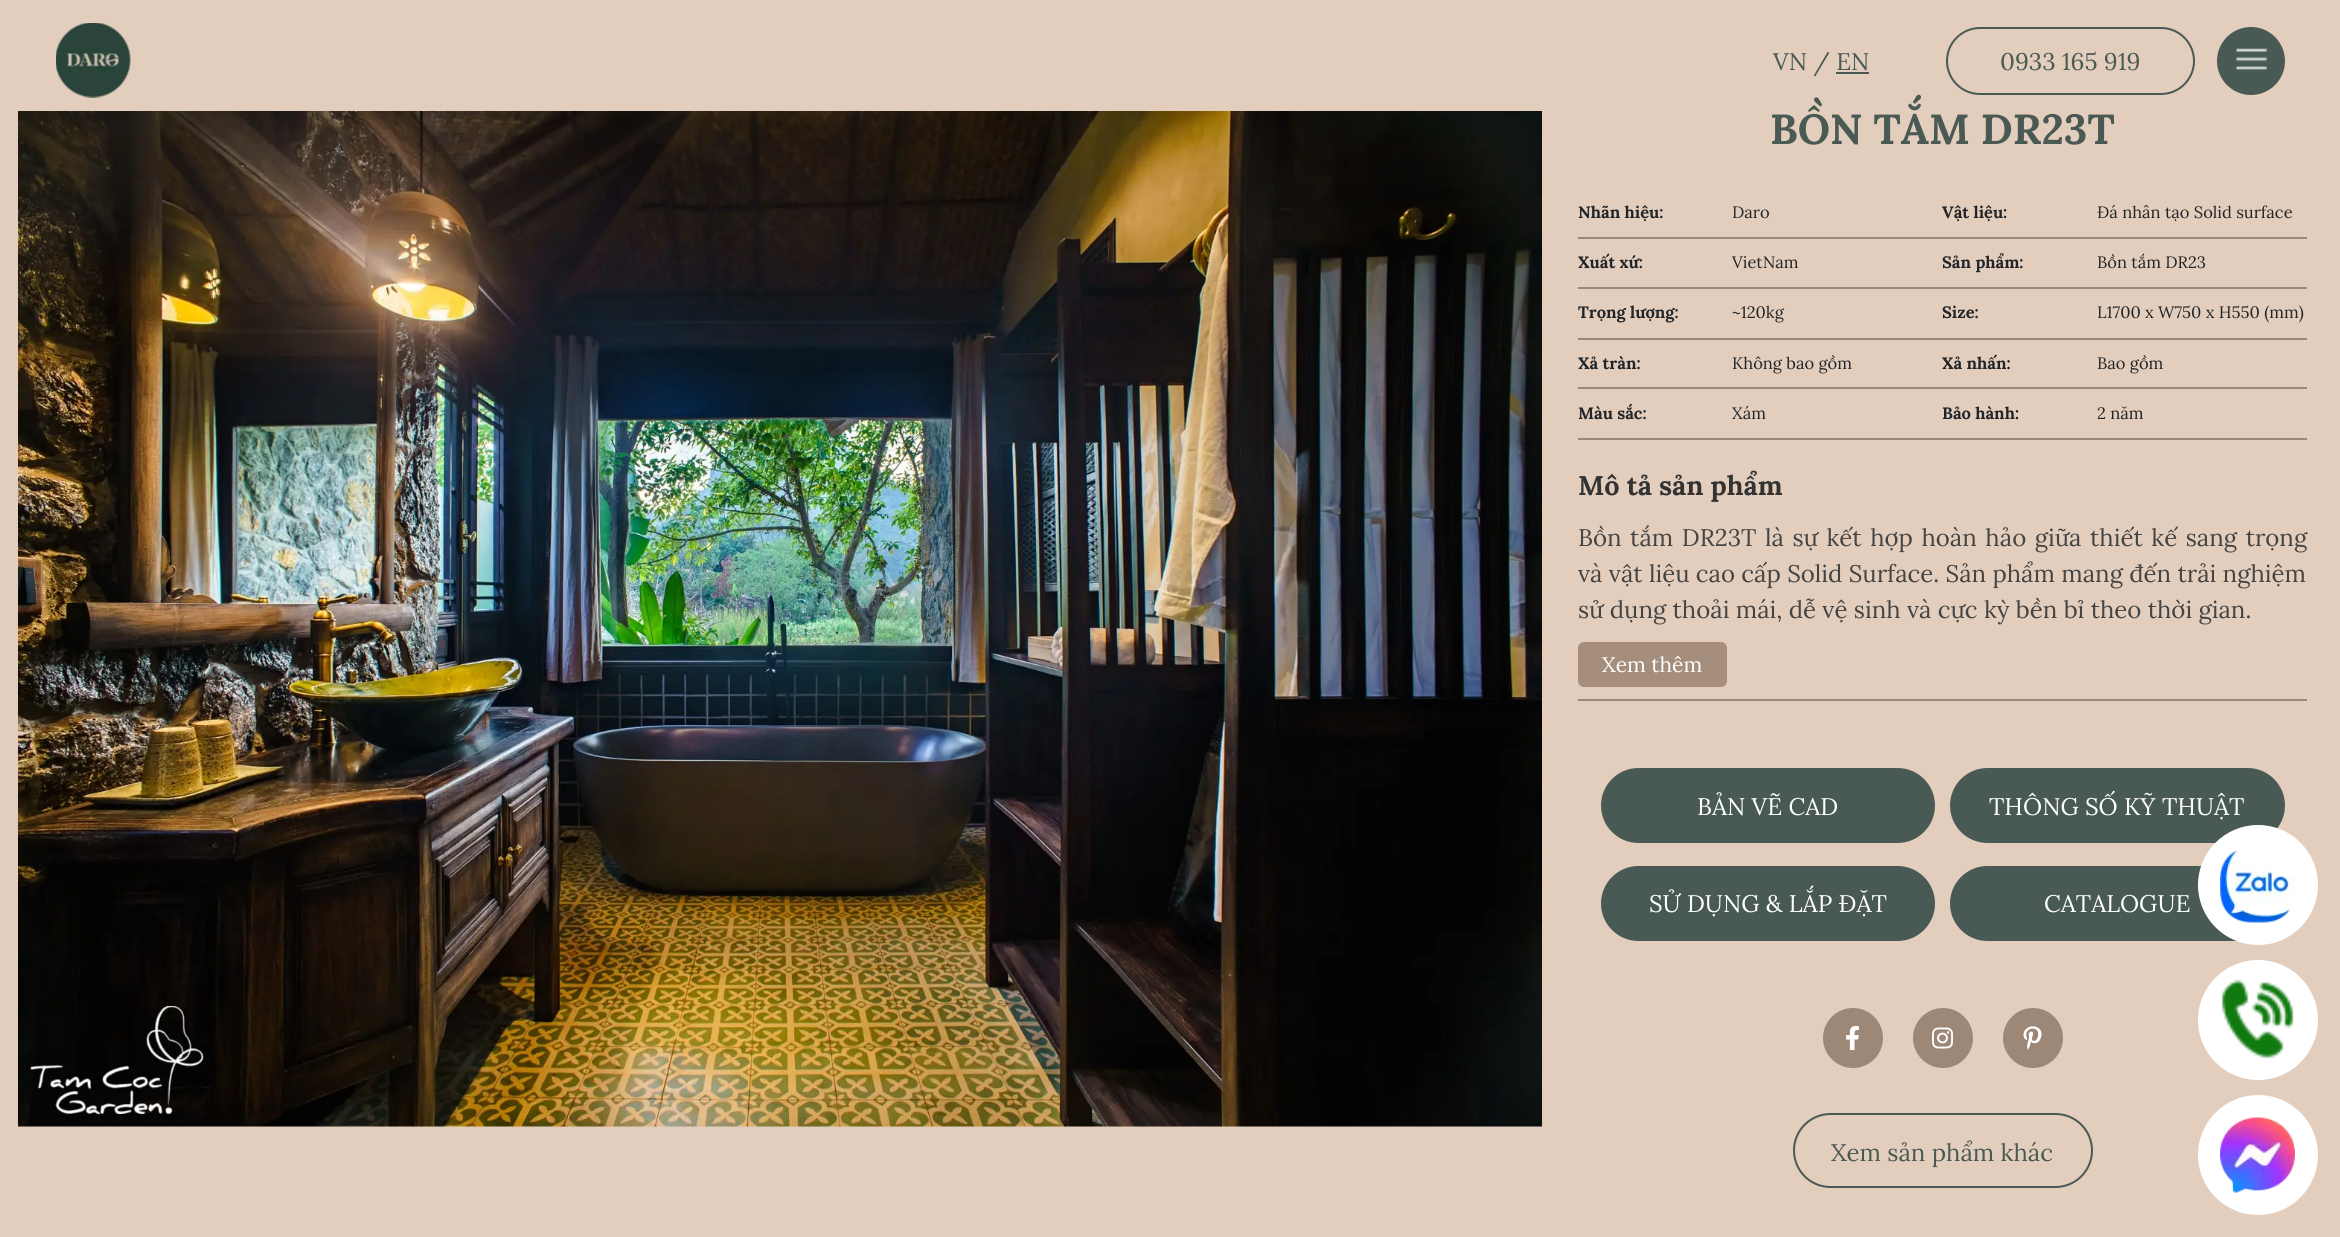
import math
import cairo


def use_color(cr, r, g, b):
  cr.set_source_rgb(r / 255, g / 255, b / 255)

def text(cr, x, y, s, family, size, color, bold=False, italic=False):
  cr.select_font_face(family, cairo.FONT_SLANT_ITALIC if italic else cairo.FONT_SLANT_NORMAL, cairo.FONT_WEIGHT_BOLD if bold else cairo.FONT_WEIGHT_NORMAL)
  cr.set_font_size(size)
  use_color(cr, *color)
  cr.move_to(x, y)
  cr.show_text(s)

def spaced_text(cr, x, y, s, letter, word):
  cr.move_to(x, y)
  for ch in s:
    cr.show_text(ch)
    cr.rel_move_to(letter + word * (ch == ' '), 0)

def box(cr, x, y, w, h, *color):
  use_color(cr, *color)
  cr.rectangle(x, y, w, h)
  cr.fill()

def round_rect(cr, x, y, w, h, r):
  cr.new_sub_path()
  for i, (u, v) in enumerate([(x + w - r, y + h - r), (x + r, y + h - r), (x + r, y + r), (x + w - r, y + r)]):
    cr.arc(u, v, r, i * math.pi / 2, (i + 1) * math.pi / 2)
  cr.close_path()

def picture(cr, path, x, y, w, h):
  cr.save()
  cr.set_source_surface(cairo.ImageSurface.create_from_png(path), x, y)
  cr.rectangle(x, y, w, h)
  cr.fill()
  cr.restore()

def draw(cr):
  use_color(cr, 227, 206, 189)
  cr.paint()
  picture(cr, "img_01.png", 56, 23, 75, 75)
  box(cr, 1836, 72, 33, 2, 73, 89, 84)
  round_rect(cr, 1947, 28, 247, 66, 33)
  cr.stroke()
  cr.arc(2251, 61, 34, 0, 2 * math.pi)
  cr.fill()
  picture(cr, "img_02.png", 2236, 48, 31, 22)
  picture(cr, "img_03.png", 18, 111, 1524, 1016)
  box(cr, 1578, 237, 729, 2, 157, 135, 118)
  box(cr, 1578, 287, 729, 2, 157, 135, 118)
  box(cr, 1578, 338, 729, 2, 157, 135, 118)
  box(cr, 1578, 387, 729, 2, 157, 135, 118)
  box(cr, 1578, 438, 729, 2, 157, 135, 118)
  box(cr, 1578, 699, 729, 2, 157, 135, 118)
  use_color(cr, 165, 142, 124)
  round_rect(cr, 1578, 642, 149, 45, 6)
  cr.fill()
  use_color(cr, 73, 89, 84)
  round_rect(cr, 1601, 768, 334, 75, 37.5)
  cr.fill()
  round_rect(cr, 1950, 768, 335, 75, 37.5)
  cr.fill()
  round_rect(cr, 1601, 866, 334, 75, 37.5)
  cr.fill()
  round_rect(cr, 1950, 866, 335, 75, 37.5)
  cr.fill()
  use_color(cr, 157, 135, 118)
  cr.arc(1853, 1038, 30, 0, 2 * math.pi)
  cr.fill()
  picture(cr, "img_04.png", 1846, 1026, 13, 24)
  cr.arc(1943, 1038, 30, 0, 2 * math.pi)
  cr.fill()
  picture(cr, "img_05.png", 1932, 1027, 21, 22)
  cr.arc(2033, 1038, 30, 0, 2 * math.pi)
  cr.fill()
  picture(cr, "img_06.png", 2023, 1026, 19, 24)
  round_rect(cr, 1794, 1114, 298, 73, 36.5)
  use_color(cr, 73, 89, 84)
  cr.stroke()
  use_color(cr, 255, 255, 255)
  cr.arc(2258, 885, 60, 0, 2 * math.pi)
  cr.fill()
  picture(cr, "img_07.png", 2220, 850, 75, 73)
  cr.arc(2258, 1020, 60, 0, 2 * math.pi)
  cr.fill()
  picture(cr, "img_08.png", 2221, 979, 73, 80)
  cr.arc(2258, 1155, 60, 0, 2 * math.pi)
  cr.fill()
  picture(cr, "img_09.png", 2220, 1117, 75, 76)
  text(cr, 1773, 70, "VN / EN", "Lora", 24, (73, 89, 84))
  text(cr, 2000, 70, "0933 165 919", "Lora", 24, (73, 89, 84))
  text(cr, 1770, 144, "BỒN TẮM DR23T", "Lora", 42, (73, 89, 84), bold=True)
  text(cr, 1578, 218, "Nhãn hiệu:", "Lora", 16.5, (33, 37, 41), bold=True)
  text(cr, 1732, 218, "Daro", "Lora", 16.5, (33, 37, 41))
  text(cr, 1942, 218, "Vật liệu:", "Lora", 16.5, (33, 37, 41), bold=True)
  text(cr, 2097, 218, "Đá nhân tạo Solid surface", "Lora", 16.5, (33, 37, 41))
  text(cr, 1578, 268, "Xuất xứ:", "Lora", 16.5, (33, 37, 41), bold=True)
  text(cr, 1732, 268, "VietNam", "Lora", 16.5, (33, 37, 41))
  text(cr, 1942, 268, "Sản phẩm:", "Lora", 16.5, (33, 37, 41), bold=True)
  text(cr, 2097, 268, "Bồn tắm DR23", "Lora", 16.5, (33, 37, 41))
  text(cr, 1578, 318, "Trọng lượng:", "Lora", 16.5, (33, 37, 41), bold=True)
  text(cr, 1732, 318, "~120kg", "Lora", 16.5, (33, 37, 41))
  text(cr, 1942, 318, "Size:", "Lora", 16.5, (33, 37, 41), bold=True)
  text(cr, 2097, 318, "L1700 x W750 x H550 (mm)", "Lora", 16.5, (33, 37, 41))
  text(cr, 1578, 369, "Xả tràn:", "Lora", 16.5, (33, 37, 41), bold=True)
  text(cr, 1732, 369, "Không bao gồm", "Lora", 16.5, (33, 37, 41))
  text(cr, 1942, 369, "Xả nhấn:", "Lora", 16.5, (33, 37, 41), bold=True)
  text(cr, 2097, 369, "Bao gồm", "Lora", 16.5, (33, 37, 41))
  text(cr, 1578, 419, "Màu sắc:", "Lora", 16.5, (33, 37, 41), bold=True)
  text(cr, 1732, 419, "Xám", "Lora", 16.5, (33, 37, 41))
  text(cr, 1942, 419, "Bảo hành:", "Lora", 16.5, (33, 37, 41), bold=True)
  text(cr, 2097, 419, "2 năm", "Lora", 16.5, (33, 37, 41))
  text(cr, 1578, 495, "Mô tả sản phẩm", "Lora", 27, (51, 51, 51), bold=True)
  cr.select_font_face("Lora")
  cr.set_font_size(24)
  use_color(cr, 68, 68, 68)
  spaced_text(cr, 1578, 546, "Bồn tắm DR23T là sự kết hợp hoàn hảo giữa thiết kế sang trọng", 0, 2.25)
  text(cr, 1578, 582, "và vật liệu cao cấp Solid Surface. Sản phẩm mang đến trải nghiệm", "Lora", 24, (68, 68, 68))
  text(cr, 1578, 618, "sử dụng thoải mái, dễ vệ sinh và cực kỳ bền bỉ theo thời gian.", "Lora", 24, (68, 68, 68))
  text(cr, 1602, 672, "Xem thêm", "Lora", 21, (255, 255, 255))
  text(cr, 1697, 815, "BẢN VẼ CAD", "Lora", 24, (255, 255, 255))
  text(cr, 1989, 815, "THÔNG SỐ KỸ THUẬT", "Lora", 24, (255, 255, 255))
  text(cr, 1649, 912, "SỬ DỤNG & LẮP ĐẶT", "Lora", 24, (255, 255, 255))
  text(cr, 2044, 912, "CATALOGUE", "Lora", 24, (255, 255, 255))
  text(cr, 1831, 1161, "Xem sản phẩm khác", "Lora", 24, (73, 89, 84))


surface = cairo.ImageSurface(cairo.FORMAT_RGB24, 2340, 1237)
cr = cairo.Context(surface)
options = cairo.FontOptions()
options.set_hint_metrics(cairo.HINT_METRICS_OFF)
options.set_hint_style(cairo.HINT_STYLE_NONE)
cr.set_font_options(options)
cr.set_miter_limit(4)
draw(cr)
surface.write_to_png("out.png")
